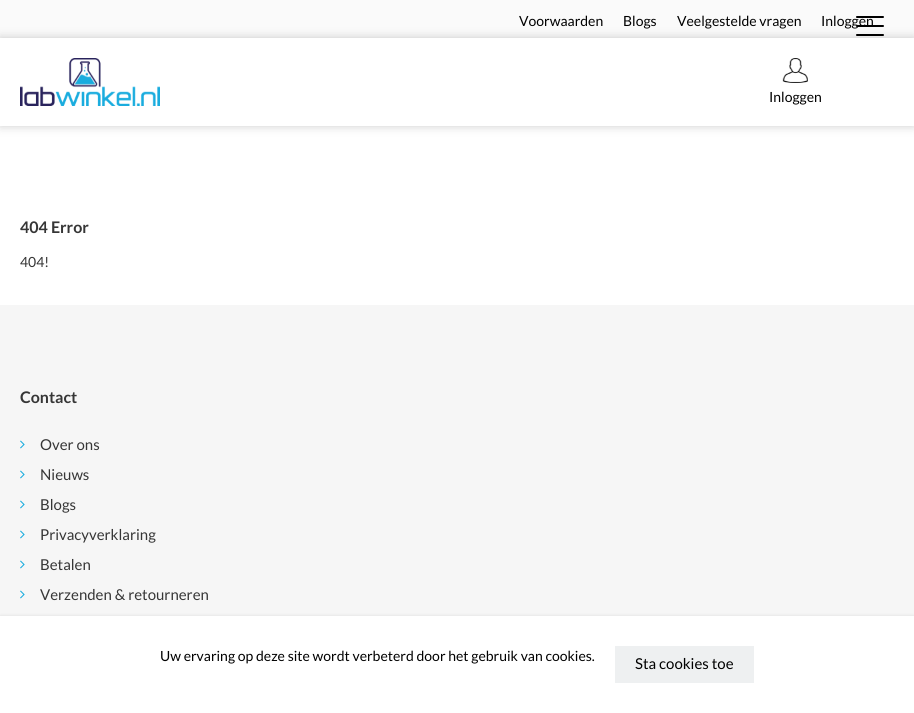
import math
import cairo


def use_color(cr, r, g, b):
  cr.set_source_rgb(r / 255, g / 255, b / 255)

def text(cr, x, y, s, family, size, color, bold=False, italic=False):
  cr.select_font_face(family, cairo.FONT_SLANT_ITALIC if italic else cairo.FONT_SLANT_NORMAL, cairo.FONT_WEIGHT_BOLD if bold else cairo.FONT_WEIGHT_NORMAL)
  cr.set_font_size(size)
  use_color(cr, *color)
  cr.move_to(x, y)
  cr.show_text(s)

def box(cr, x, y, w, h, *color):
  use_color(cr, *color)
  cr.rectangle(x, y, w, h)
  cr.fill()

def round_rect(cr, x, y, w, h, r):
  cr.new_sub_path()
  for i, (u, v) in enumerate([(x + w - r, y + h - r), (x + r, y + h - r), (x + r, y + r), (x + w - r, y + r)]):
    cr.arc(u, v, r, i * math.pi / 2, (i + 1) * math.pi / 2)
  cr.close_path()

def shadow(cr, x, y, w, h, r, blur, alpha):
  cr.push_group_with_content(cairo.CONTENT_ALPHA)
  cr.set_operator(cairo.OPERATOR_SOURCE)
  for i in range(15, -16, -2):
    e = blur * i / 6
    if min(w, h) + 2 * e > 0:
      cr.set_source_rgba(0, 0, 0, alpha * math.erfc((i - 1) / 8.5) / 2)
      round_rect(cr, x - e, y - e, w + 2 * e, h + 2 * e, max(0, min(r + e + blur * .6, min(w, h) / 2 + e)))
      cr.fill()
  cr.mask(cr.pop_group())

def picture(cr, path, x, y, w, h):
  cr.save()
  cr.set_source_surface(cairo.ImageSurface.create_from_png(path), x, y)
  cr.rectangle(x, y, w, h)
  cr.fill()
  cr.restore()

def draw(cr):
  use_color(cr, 255, 255, 255)
  cr.paint()
  box(cr, 0, 0, 914, 38, 250, 250, 250)
  cr.save()
  cr.set_fill_rule(cairo.FILL_RULE_EVEN_ODD)
  cr.new_path()
  cr.move_to(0, 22)
  cr.line_to(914, 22)
  cr.line_to(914, 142)
  cr.line_to(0, 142)
  cr.close_path()
  cr.move_to(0, 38)
  cr.line_to(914, 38)
  cr.line_to(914, 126)
  cr.line_to(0, 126)
  cr.close_path()
  cr.clip()
  use_color(cr, 0, 0, 0)
  shadow(cr, 0, 38, 914, 88, 0, 5, 0.2)
  cr.restore()
  use_color(cr, 0, 0, 0)
  round_rect(cr, 856, 25, 28, 2, 1)
  cr.fill()
  round_rect(cr, 856, 16, 28, 2, 1)
  cr.fill()
  round_rect(cr, 856, 34, 28, 2, 1)
  cr.fill()
  picture(cr, "img_01.png", 20, 58, 140, 48)
  picture(cr, "img_02.png", 782, 58, 26, 25)
  box(cr, 0, 305, 914, 311, 246, 246, 246)
  picture(cr, "img_03.png", 20, 440, 5, 9)
  picture(cr, "img_03.png", 20, 470, 5, 9)
  picture(cr, "img_03.png", 20, 500, 5, 9)
  picture(cr, "img_03.png", 20, 530, 5, 9)
  picture(cr, "img_03.png", 20, 560, 5, 9)
  picture(cr, "img_03.png", 20, 590, 5, 9)
  use_color(cr, 0, 0, 0)
  shadow(cr, 0, 616, 914, 97, 0, 1.5, 0.1)
  box(cr, 0, 616, 914, 97, 255, 255, 255)
  box(cr, 615, 646, 139, 37, 238, 240, 241)
  text(cr, 519, 26, "Voorwaarden", "Lato", 14, (0, 0, 0))
  text(cr, 623, 26, "Blogs", "Lato", 14, (0, 0, 0))
  text(cr, 677, 26, "Veelgestelde vragen", "Lato", 14, (0, 0, 0))
  text(cr, 821, 26, "Inloggen", "Lato", 14, (0, 0, 0))
  text(cr, 769, 102, "Inloggen", "Lato", 14, (0, 0, 0))
  text(cr, 20, 233, "404 Error", "Lato", 16, (54, 54, 54), bold=True)
  text(cr, 20, 267, "404!", "Lato", 14, (54, 54, 54))
  text(cr, 20, 403, "Contact", "Lato", 16, (54, 54, 54), bold=True)
  text(cr, 40, 450, "Over ons", "Lato", 15, (54, 54, 54))
  text(cr, 40, 480, "Nieuws", "Lato", 15, (54, 54, 54))
  text(cr, 40, 510, "Blogs", "Lato", 15, (54, 54, 54))
  text(cr, 40, 540, "Privacyverklaring", "Lato", 15, (54, 54, 54))
  text(cr, 40, 570, "Betalen", "Lato", 15, (54, 54, 54))
  text(cr, 40, 600, "Verzenden & retourneren", "Lato", 15, (54, 54, 54))
  text(cr, 160, 661, "Uw ervaring op deze site wordt verbeterd door het gebruik van cookies.", "Lato", 14, (0, 0, 0))
  text(cr, 635, 669, "Sta cookies toe", "Lato", 15, (0, 0, 0))


surface = cairo.ImageSurface(cairo.FORMAT_RGB24, 914, 713)
cr = cairo.Context(surface)
options = cairo.FontOptions()
options.set_hint_metrics(cairo.HINT_METRICS_OFF)
options.set_hint_style(cairo.HINT_STYLE_NONE)
cr.set_font_options(options)
cr.set_miter_limit(4)
draw(cr)
surface.write_to_png("out.png")
